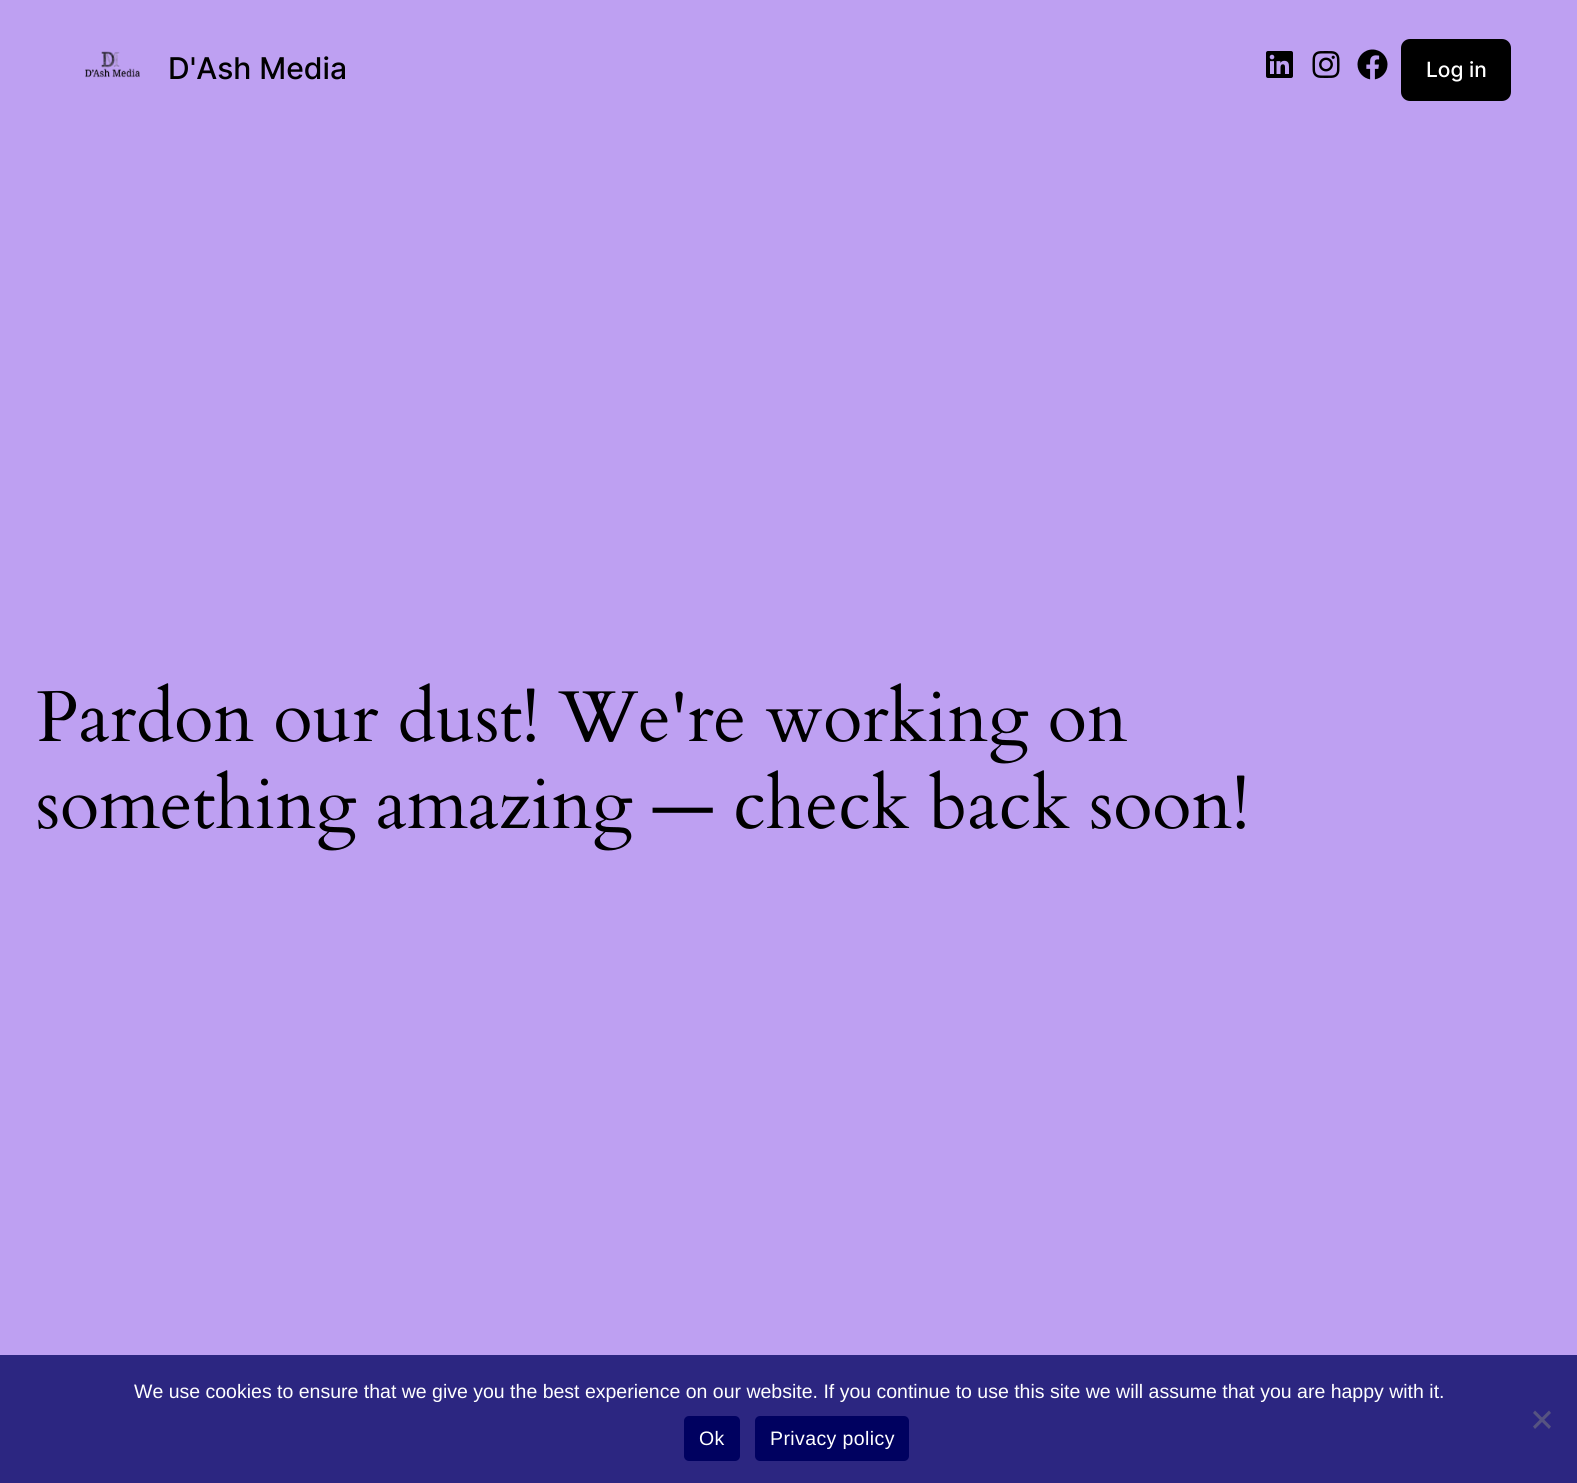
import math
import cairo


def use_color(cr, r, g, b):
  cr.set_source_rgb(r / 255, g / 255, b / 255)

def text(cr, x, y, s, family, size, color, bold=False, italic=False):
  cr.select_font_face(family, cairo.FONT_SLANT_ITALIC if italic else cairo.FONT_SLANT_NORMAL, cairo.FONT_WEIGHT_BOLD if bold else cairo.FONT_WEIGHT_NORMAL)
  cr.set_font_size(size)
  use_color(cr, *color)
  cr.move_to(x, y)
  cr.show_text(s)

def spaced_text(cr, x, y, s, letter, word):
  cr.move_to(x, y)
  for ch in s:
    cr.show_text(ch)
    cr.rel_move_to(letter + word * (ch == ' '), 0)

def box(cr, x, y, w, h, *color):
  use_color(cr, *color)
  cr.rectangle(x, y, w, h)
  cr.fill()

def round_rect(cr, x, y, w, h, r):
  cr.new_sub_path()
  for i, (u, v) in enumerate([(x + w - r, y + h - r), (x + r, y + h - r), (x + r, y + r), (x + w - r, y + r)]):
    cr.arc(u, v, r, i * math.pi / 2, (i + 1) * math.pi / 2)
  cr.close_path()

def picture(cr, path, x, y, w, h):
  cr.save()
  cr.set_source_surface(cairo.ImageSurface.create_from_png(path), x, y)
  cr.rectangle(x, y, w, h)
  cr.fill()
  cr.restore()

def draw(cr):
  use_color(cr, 190, 160, 242)
  cr.paint()
  picture(cr, "img_01.png", 85, 51, 55, 27)
  picture(cr, "img_02.png", 1266, 51, 27, 27)
  picture(cr, "img_03.png", 1312, 51, 28, 27)
  picture(cr, "img_04.png", 1357, 49, 31, 31)
  use_color(cr, 0, 0, 0)
  round_rect(cr, 1401, 39, 110, 62, 9)
  cr.fill()
  picture(cr, "img_05.png", 37, 683, 1090, 81)
  picture(cr, "img_06.png", 38, 770, 1207, 81)
  box(cr, 0, 1355, 1577, 128, 44, 38, 129)
  use_color(cr, 86, 83, 129)
  cr.new_path()
  cr.move_to(1549, 1410.5)
  cr.line_to(1551, 1413)
  cr.line_to(1535, 1429)
  cr.line_to(1533, 1426.5)
  cr.close_path()
  cr.fill()
  cr.new_path()
  cr.move_to(1533, 1413)
  cr.line_to(1535, 1410.5)
  cr.line_to(1551, 1426.5)
  cr.line_to(1549, 1429)
  cr.close_path()
  cr.fill()
  use_color(cr, 0, 1, 96)
  round_rect(cr, 684, 1416, 56, 45, 5)
  cr.fill()
  round_rect(cr, 755, 1416, 154, 45, 5)
  cr.fill()
  text(cr, 168, 79, "D'Ash Media", "Inter Medium", 30, (0, 0, 0))
  text(cr, 1426, 77, "Log in", "Inter Medium", 21, (255, 255, 255))
  text(cr, 134, 1398, "We use cookies to ensure that we give you the best experience on our website. If you continue to use this site we will assume that you are happy with it.", "Liberation Sans", 19.5, (255, 255, 255))
  spaced_text(cr, 699, 1445, "Ok", 0.4, 0)
  spaced_text(cr, 770, 1445, "Privacy policy", 0.4, 0)


surface = cairo.ImageSurface(cairo.FORMAT_RGB24, 1577, 1483)
cr = cairo.Context(surface)
options = cairo.FontOptions()
options.set_hint_metrics(cairo.HINT_METRICS_OFF)
options.set_hint_style(cairo.HINT_STYLE_NONE)
cr.set_font_options(options)
cr.set_miter_limit(4)
draw(cr)
surface.write_to_png("out.png")
